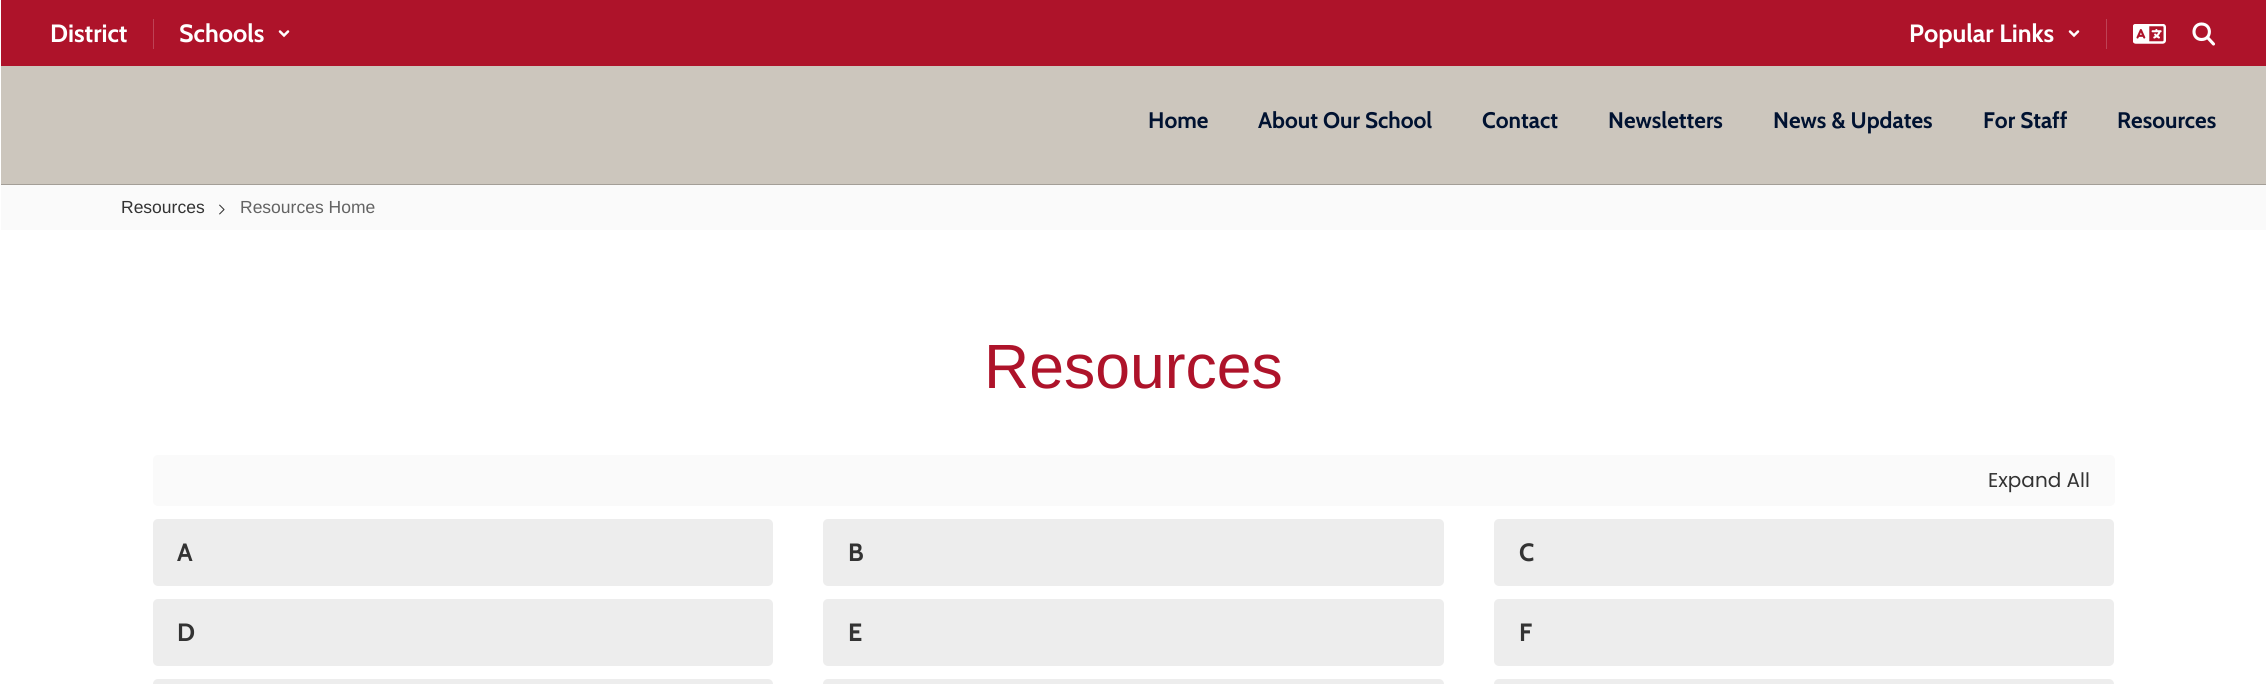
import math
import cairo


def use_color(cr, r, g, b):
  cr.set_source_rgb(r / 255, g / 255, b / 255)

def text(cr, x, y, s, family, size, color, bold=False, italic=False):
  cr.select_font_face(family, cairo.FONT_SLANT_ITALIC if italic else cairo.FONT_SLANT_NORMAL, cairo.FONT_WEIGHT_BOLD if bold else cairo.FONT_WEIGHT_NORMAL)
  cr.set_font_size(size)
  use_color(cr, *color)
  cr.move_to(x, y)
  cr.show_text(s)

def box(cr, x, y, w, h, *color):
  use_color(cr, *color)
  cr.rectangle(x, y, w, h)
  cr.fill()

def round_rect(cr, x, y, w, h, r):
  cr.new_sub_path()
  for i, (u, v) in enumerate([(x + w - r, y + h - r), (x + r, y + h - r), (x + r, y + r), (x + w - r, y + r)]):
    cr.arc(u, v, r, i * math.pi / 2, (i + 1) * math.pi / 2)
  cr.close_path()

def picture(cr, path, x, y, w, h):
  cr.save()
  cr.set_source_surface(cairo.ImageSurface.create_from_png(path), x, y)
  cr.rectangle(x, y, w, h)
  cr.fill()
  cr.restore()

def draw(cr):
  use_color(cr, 255, 255, 255)
  cr.paint()
  box(cr, 1, 0, 2265, 66, 174, 19, 42)
  box(cr, 153, 19, 1, 30, 190, 66, 85)
  cr.new_path()
  cr.move_to(280, 31.5)
  cr.line_to(284, 35.5)
  cr.line_to(288, 31.5)
  use_color(cr, 255, 255, 255)
  cr.set_line_width(2.5)
  cr.set_line_cap(cairo.LINE_CAP_ROUND)
  cr.stroke()
  box(cr, 2106, 19, 1, 30, 190, 66, 85)
  cr.new_path()
  cr.move_to(2070, 31.5)
  cr.line_to(2074, 35.5)
  cr.line_to(2078, 31.5)
  use_color(cr, 255, 255, 255)
  cr.stroke()
  picture(cr, "img_01.png", 2133, 24, 33, 20)
  cr.new_path()
  cr.move_to(2201.5, 39.5)
  cr.curve_to(2212, 39.5, 2212, 24, 2201.5, 24)
  cr.curve_to(2191.5, 24, 2191.5, 39.5, 2201.5, 39.5)
  cr.close_path()
  cr.set_line_width(3.1)
  cr.set_line_cap(cairo.LINE_CAP_SQUARE)
  cr.set_line_join(cairo.LINE_JOIN_ROUND)
  cr.stroke()
  cr.new_path()
  cr.move_to(2213.5, 44)
  cr.line_to(2207.5, 37.5)
  cr.set_line_cap(cairo.LINE_CAP_ROUND)
  cr.stroke()
  box(cr, 1, 66, 2265, 118, 204, 198, 189)
  box(cr, 1, 184, 2265, 1, 163, 158, 151)
  box(cr, 1, 185, 2265, 45, 250, 250, 250)
  picture(cr, "img_02.png", 219, 204, 6, 11)
  round_rect(cr, 153, 455, 1962, 51, 5)
  cr.fill()
  use_color(cr, 237, 237, 237)
  round_rect(cr, 153, 519, 620, 67, 5)
  cr.fill()
  round_rect(cr, 823, 519, 621, 67, 5)
  cr.fill()
  round_rect(cr, 1494, 519, 620, 67, 5)
  cr.fill()
  round_rect(cr, 153, 599, 620, 67, 5)
  cr.fill()
  round_rect(cr, 823, 599, 621, 67, 5)
  cr.fill()
  round_rect(cr, 1494, 599, 620, 67, 5)
  cr.fill()
  round_rect(cr, 153, 679, 620, 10, 5)
  cr.fill()
  round_rect(cr, 823, 679, 621, 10, 5)
  cr.fill()
  round_rect(cr, 1494, 679, 620, 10, 5)
  cr.fill()
  text(cr, 50, 42, "District", "Cabin", 25, (255, 255, 255), bold=True)
  text(cr, 179, 42, "Schools", "Cabin", 25, (255, 255, 255), bold=True)
  text(cr, 1909, 42, "Popular Links", "Cabin", 25, (255, 255, 255), bold=True)
  text(cr, 1148, 128, "Home", "Cabin", 22.5, (0, 18, 49), bold=True)
  text(cr, 1258, 128, "About Our School", "Cabin", 22.5, (0, 18, 49), bold=True)
  text(cr, 1482, 128, "Contact", "Cabin", 22.5, (0, 18, 49), bold=True)
  text(cr, 1608, 128, "Newsletters", "Cabin", 22.5, (0, 18, 49), bold=True)
  text(cr, 1773, 128, "News & Updates", "Cabin", 22.5, (0, 18, 49), bold=True)
  text(cr, 1983, 128, "For Staff", "Cabin", 22.5, (0, 18, 49), bold=True)
  text(cr, 2117, 128, "Resources", "Cabin", 22.5, (0, 18, 49), bold=True)
  text(cr, 121, 213, "Resources", "Liberation Sans", 17.5, (51, 51, 51))
  text(cr, 240, 213, "Resources Home", "Liberation Sans", 17.5, (99, 99, 99))
  text(cr, 984, 388, "Resources", "Liberation Sans", 62.5, (174, 19, 42))
  text(cr, 1988, 487, "Expand All", "Poppins", 20, (51, 51, 51))
  text(cr, 177, 561, "A", "Cabin", 25, (51, 51, 51), bold=True)
  text(cr, 848, 561, "B", "Cabin", 25, (51, 51, 51), bold=True)
  text(cr, 1519, 561, "C", "Cabin", 25, (51, 51, 51), bold=True)
  text(cr, 177, 641, "D", "Cabin", 25, (51, 51, 51), bold=True)
  text(cr, 848, 641, "E", "Cabin", 25, (51, 51, 51), bold=True)
  text(cr, 1519, 641, "F", "Cabin", 25, (51, 51, 51), bold=True)


surface = cairo.ImageSurface(cairo.FORMAT_RGB24, 2266, 684)
cr = cairo.Context(surface)
options = cairo.FontOptions()
options.set_hint_metrics(cairo.HINT_METRICS_OFF)
options.set_hint_style(cairo.HINT_STYLE_NONE)
cr.set_font_options(options)
cr.set_miter_limit(4)
draw(cr)
surface.write_to_png("out.png")
